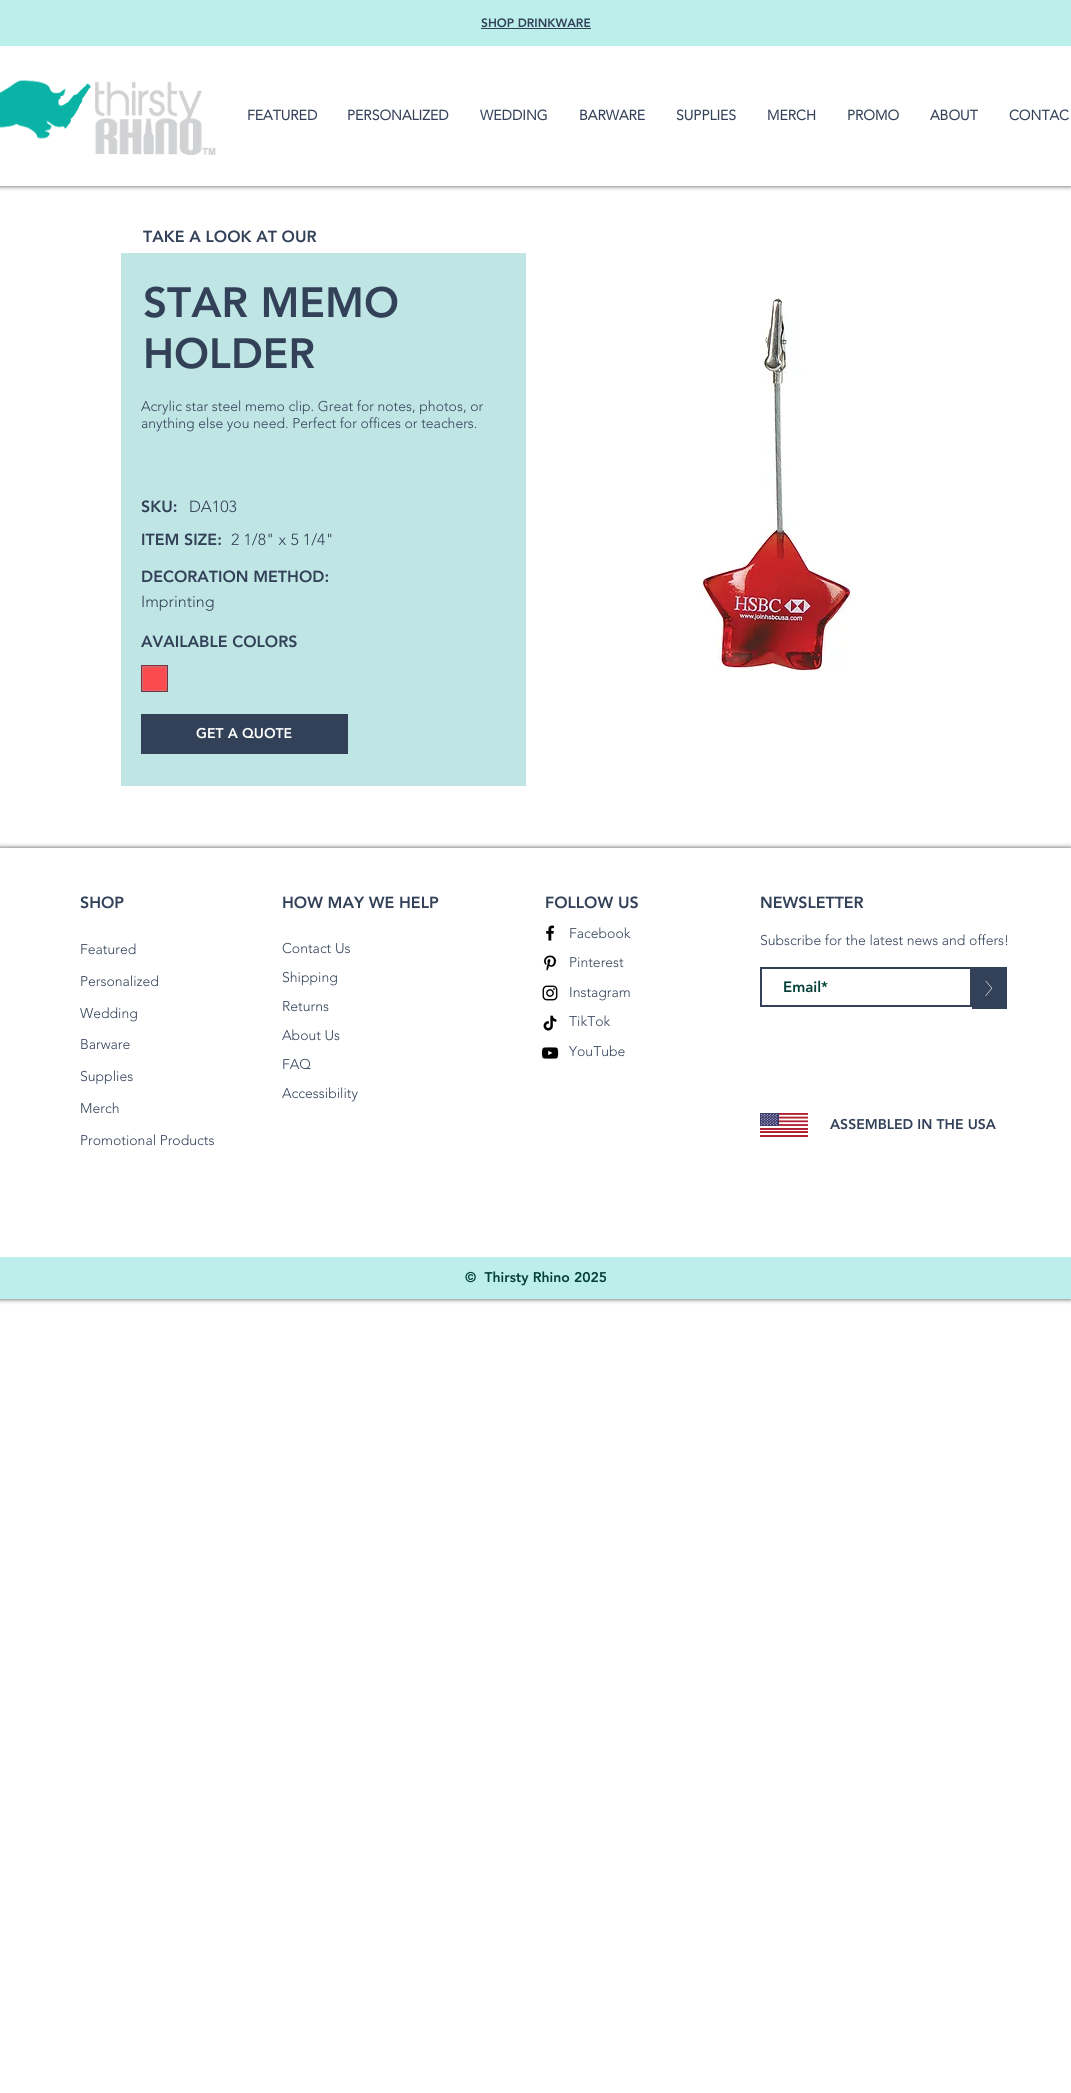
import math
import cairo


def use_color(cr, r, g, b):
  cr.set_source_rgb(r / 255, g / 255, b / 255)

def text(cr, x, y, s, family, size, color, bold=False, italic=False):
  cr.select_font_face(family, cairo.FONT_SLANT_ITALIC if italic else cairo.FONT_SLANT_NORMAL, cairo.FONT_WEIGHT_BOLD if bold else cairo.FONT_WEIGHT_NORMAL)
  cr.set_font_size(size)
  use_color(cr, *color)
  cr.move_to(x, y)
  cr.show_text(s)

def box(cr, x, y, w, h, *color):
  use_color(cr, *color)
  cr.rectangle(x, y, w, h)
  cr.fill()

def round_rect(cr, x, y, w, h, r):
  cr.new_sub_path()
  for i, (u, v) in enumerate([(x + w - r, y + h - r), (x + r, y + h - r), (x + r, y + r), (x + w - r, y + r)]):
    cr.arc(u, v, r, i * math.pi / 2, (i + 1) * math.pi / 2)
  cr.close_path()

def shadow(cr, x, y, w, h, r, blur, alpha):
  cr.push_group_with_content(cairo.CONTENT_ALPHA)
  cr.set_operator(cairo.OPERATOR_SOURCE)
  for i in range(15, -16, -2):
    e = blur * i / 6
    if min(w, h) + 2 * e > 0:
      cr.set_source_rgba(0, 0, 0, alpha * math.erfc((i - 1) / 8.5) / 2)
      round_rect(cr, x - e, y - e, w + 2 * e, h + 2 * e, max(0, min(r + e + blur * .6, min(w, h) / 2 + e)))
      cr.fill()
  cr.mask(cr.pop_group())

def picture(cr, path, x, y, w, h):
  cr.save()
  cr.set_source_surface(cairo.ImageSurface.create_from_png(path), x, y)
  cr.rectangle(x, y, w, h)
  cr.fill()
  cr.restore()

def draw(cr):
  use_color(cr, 255, 255, 255)
  cr.paint()
  cr.save()
  cr.rectangle(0, 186, 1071, 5)
  cr.clip()
  use_color(cr, 0, 0, 0)
  shadow(cr, 0, 0, 1071, 186, 0, 2.5, 0.7)
  cr.restore()
  box(cr, 0, 0, 1071, 46, 188, 239, 235)
  box(cr, 481, 28, 110, 1, 50, 65, 88)
  picture(cr, "img_01.png", 0, 80, 216, 75)
  box(cr, 121, 253, 405, 533, 192, 229, 229)
  picture(cr, "img_02.png", 141, 665, 27, 27)
  box(cr, 141, 714, 207, 40, 50, 65, 88)
  picture(cr, "img_03.png", 701, 296, 153, 376)
  cr.save()
  cr.set_fill_rule(cairo.FILL_RULE_EVEN_ODD)
  cr.new_path()
  cr.move_to(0, 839)
  cr.line_to(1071, 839)
  cr.line_to(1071, 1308)
  cr.line_to(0, 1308)
  cr.close_path()
  cr.move_to(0, 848)
  cr.line_to(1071, 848)
  cr.line_to(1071, 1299)
  cr.line_to(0, 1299)
  cr.close_path()
  cr.clip()
  use_color(cr, 0, 0, 0)
  shadow(cr, 0, 848, 1071, 451, 0, 2.5, 0.7)
  cr.restore()
  picture(cr, "img_04.png", 546, 925, 9, 16)
  picture(cr, "img_05.png", 543, 955, 14, 16)
  picture(cr, "img_06.png", 542, 985, 16, 16)
  picture(cr, "img_07.png", 543, 1015, 14, 16)
  picture(cr, "img_08.png", 541, 1047, 18, 12)
  cr.rectangle(761, 968, 210, 38)
  cr.stroke()
  box(cr, 972, 967, 35, 42, 50, 65, 88)
  picture(cr, "img_09.png", 985, 980, 8, 16)
  picture(cr, "img_10.png", 760, 1113, 48, 24)
  box(cr, 0, 1257, 1071, 42, 188, 239, 235)
  text(cr, 481, 27, "SHOP DRINKWARE", "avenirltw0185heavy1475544 Black", 12, (50, 65, 88))
  text(cr, 247, 120, "FEATURED", "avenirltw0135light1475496", 14, (50, 65, 88), bold=True)
  text(cr, 347, 120, "PERSONALIZED", "avenirltw0135light1475496", 14, (50, 65, 88), bold=True)
  text(cr, 480, 120, "WEDDING", "avenirltw0135light1475496", 14, (50, 65, 88), bold=True)
  text(cr, 579, 120, "BARWARE", "avenirltw0135light1475496", 14, (50, 65, 88), bold=True)
  text(cr, 676, 120, "SUPPLIES", "avenirltw0135light1475496", 14, (50, 65, 88), bold=True)
  text(cr, 767, 120, "MERCH", "avenirltw0135light1475496", 14, (50, 65, 88), bold=True)
  text(cr, 847, 120, "PROMO", "avenirltw0135light1475496", 14, (50, 65, 88), bold=True)
  text(cr, 930, 120, "ABOUT", "avenirltw0135light1475496", 14, (50, 65, 88), bold=True)
  text(cr, 1009, 120, "CONTAC", "avenirltw0135light1475496", 14, (50, 65, 88), bold=True)
  text(cr, 143, 242, "TAKE A LOOK AT OUR", "avenirltw0185heavy1475544 Black", 16, (50, 65, 88))
  text(cr, 143, 317, "STAR MEMO", "avenirltw0185heavy1475544 Black", 42, (50, 65, 88))
  text(cr, 143, 368, "HOLDER", "avenirltw0185heavy1475544 Black", 42, (50, 65, 88))
  text(cr, 141, 411, "Acrylic star steel memo clip. Great for notes, photos, or", "avenirltw0135light1475496 Light", 14, (50, 65, 88))
  text(cr, 141, 428, "anything else you need. Perfect for offices or teachers.", "avenirltw0135light1475496 Light", 14, (50, 65, 88))
  text(cr, 141, 512, "SKU:", "avenirltw0185heavy1475544 Black", 16, (50, 65, 88))
  text(cr, 189, 512, "DA103", "avenirltw0135light1475496 Light", 16, (50, 65, 88))
  text(cr, 141, 545, "ITEM SIZE:", "avenirltw0185heavy1475544 Black", 16, (50, 65, 88))
  text(cr, 231, 545, "2 1/8\" x 5 1/4\"", "avenirltw0135light1475496 Light", 16, (50, 65, 88))
  text(cr, 141, 582, "DECORATION METHOD:", "avenirltw0185heavy1475544 Black", 16, (50, 65, 88))
  text(cr, 141, 607, "Imprinting", "avenirltw0135light1475496 Light", 16, (50, 65, 88))
  text(cr, 141, 647, "AVAILABLE COLORS", "avenirltw0185heavy1475544 Black", 16, (50, 65, 88))
  text(cr, 196, 738, "GET A QUOTE", "avenirltw0185heavy1475544 Black", 14, (255, 255, 255))
  text(cr, 80, 908, "SHOP", "avenirltw0185heavy1475544 Black", 16, (50, 65, 88))
  text(cr, 282, 908, "HOW MAY WE HELP", "avenirltw0185heavy1475544 Black", 16, (50, 65, 88))
  text(cr, 545, 908, "FOLLOW US", "avenirltw0185heavy1475544 Black", 16, (50, 65, 88))
  text(cr, 760, 908, "NEWSLETTER", "avenirltw0185heavy1475544 Black", 16, (50, 65, 88))
  text(cr, 569, 938, "Facebook", "avenirltw0135light1475496 Light", 14, (50, 65, 88))
  text(cr, 569, 967, "Pinterest", "avenirltw0135light1475496 Light", 14, (50, 65, 88))
  text(cr, 569, 997, "Instagram", "avenirltw0135light1475496 Light", 14, (50, 65, 88))
  text(cr, 569, 1026, "TikTok", "avenirltw0135light1475496 Light", 14, (50, 65, 88))
  text(cr, 569, 1056, "YouTube", "avenirltw0135light1475496 Light", 14, (50, 65, 88))
  text(cr, 760, 945, "Subscribe for the latest news and offers!", "avenirltw0135light1475496 Light", 14, (50, 65, 88))
  text(cr, 80, 954, "Featured", "avenirltw0135light1475496 Light", 14, (50, 65, 88))
  text(cr, 80, 986, "Personalized", "avenirltw0135light1475496 Light", 14, (50, 65, 88))
  text(cr, 80, 1018, "Wedding", "avenirltw0135light1475496 Light", 14, (50, 65, 88))
  text(cr, 80, 1049, "Barware", "avenirltw0135light1475496 Light", 14, (50, 65, 88))
  text(cr, 80, 1081, "Supplies", "avenirltw0135light1475496 Light", 14, (50, 65, 88))
  text(cr, 80, 1113, "Merch", "avenirltw0135light1475496 Light", 14, (50, 65, 88))
  text(cr, 80, 1145, "Promotional Products", "avenirltw0135light1475496 Light", 14, (50, 65, 88))
  text(cr, 282, 953, "Contact Us", "avenirltw0135light1475496 Light", 14, (50, 65, 88))
  text(cr, 282, 982, "Shipping", "avenirltw0135light1475496 Light", 14, (50, 65, 88))
  text(cr, 282, 1011, "Returns", "avenirltw0135light1475496 Light", 14, (50, 65, 88))
  text(cr, 282, 1040, "About Us", "avenirltw0135light1475496 Light", 14, (50, 65, 88))
  text(cr, 282, 1069, "FAQ", "avenirltw0135light1475496 Light", 14, (50, 65, 88))
  text(cr, 282, 1098, "Accessibility", "avenirltw0135light1475496 Light", 14, (50, 65, 88))
  text(cr, 783, 992, "Email*", "avenirltw0185heavy1475544 Black", 15, (5, 64, 59))
  text(cr, 830, 1129, "ASSEMBLED IN THE USA", "avenirltw0185heavy1475544 Black", 14, (50, 65, 88))
  text(cr, 465, 1282, "©  Thirsty Rhino 2025", "avenirltw0185heavy1475544 Black", 14, (5, 64, 59))


surface = cairo.ImageSurface(cairo.FORMAT_RGB24, 1071, 2093)
cr = cairo.Context(surface)
options = cairo.FontOptions()
options.set_hint_metrics(cairo.HINT_METRICS_OFF)
options.set_hint_style(cairo.HINT_STYLE_NONE)
cr.set_font_options(options)
cr.set_miter_limit(4)
draw(cr)
surface.write_to_png("out.png")
